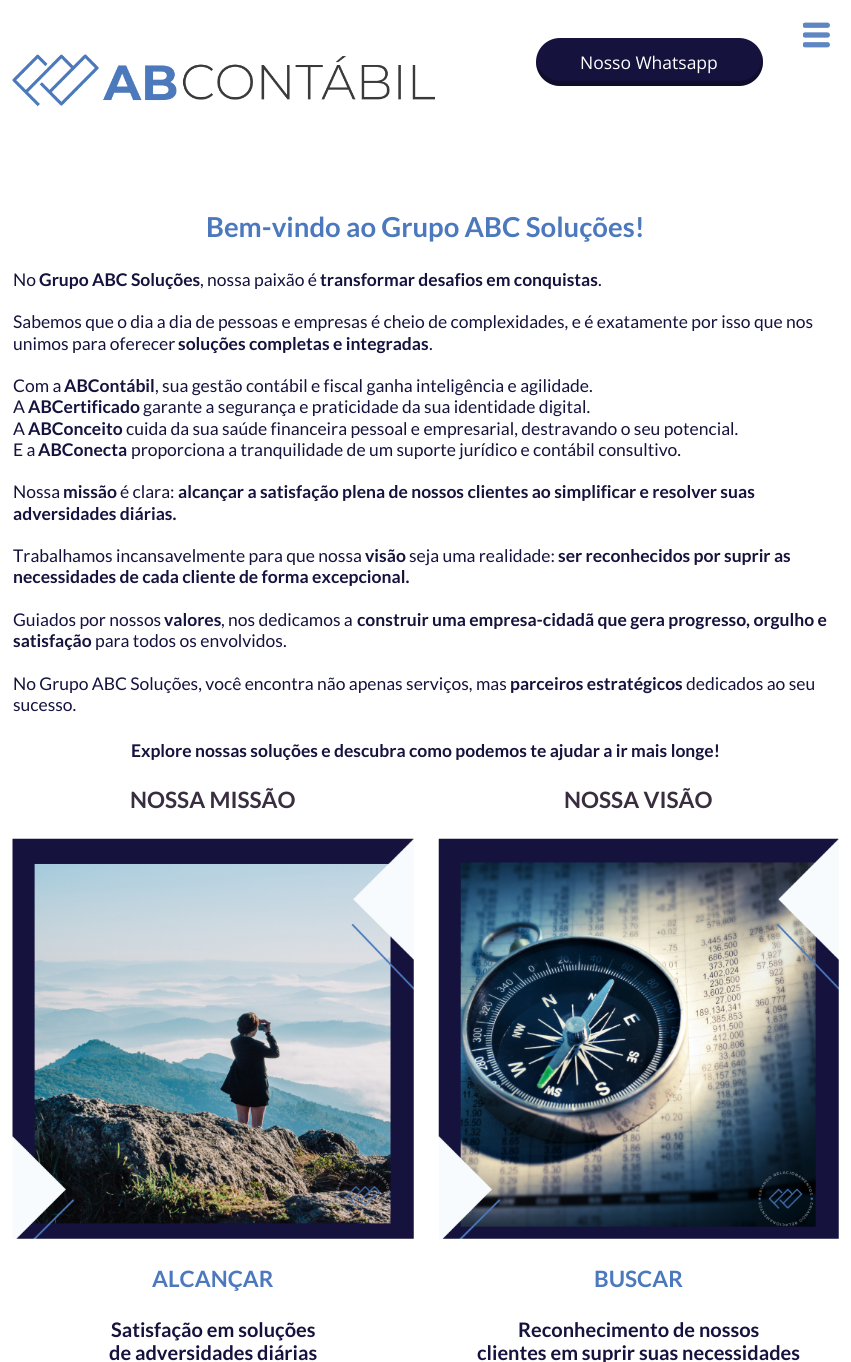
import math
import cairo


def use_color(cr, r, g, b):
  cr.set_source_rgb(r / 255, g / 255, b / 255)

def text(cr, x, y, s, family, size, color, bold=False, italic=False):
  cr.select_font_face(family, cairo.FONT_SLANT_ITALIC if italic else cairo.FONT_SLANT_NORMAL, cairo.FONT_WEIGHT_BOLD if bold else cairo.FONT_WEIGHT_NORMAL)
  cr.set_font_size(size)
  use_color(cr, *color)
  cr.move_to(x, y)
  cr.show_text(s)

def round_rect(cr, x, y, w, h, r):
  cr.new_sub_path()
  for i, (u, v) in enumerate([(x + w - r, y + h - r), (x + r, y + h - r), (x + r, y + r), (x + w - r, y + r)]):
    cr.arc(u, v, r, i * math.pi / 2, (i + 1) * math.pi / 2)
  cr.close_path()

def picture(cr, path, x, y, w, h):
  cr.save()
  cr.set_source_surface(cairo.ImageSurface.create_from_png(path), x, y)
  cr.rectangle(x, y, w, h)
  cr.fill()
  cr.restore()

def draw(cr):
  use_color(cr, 255, 255, 255)
  cr.paint()
  picture(cr, "img_01.png", 803, 22, 27, 26)
  picture(cr, "img_02.png", 12, 54, 423, 53)
  use_color(cr, 21, 18, 62)
  round_rect(cr, 536, 38, 227, 48, 24)
  cr.fill()
  cr.set_source_rgba(0, 0, 0, 0.3)
  cr.new_path()
  cr.move_to(536, 59)
  cr.line_to(536, 62)
  cr.curve_to(536, 75, 547, 86, 560, 86)
  cr.line_to(739, 86)
  cr.curve_to(752, 86, 763, 75, 763, 62)
  cr.curve_to(763, 60, 763, 57, 762, 55)
  cr.line_to(762, 57)
  cr.curve_to(762, 70, 752, 81, 738, 81)
  cr.line_to(561, 81)
  cr.curve_to(548, 81, 537, 71, 536, 59)
  cr.close_path()
  cr.fill()
  picture(cr, "img_03.png", 12, 838, 402, 401)
  picture(cr, "img_04.png", 438, 838, 401, 401)
  text(cr, 580, 69, "Nosso Whatsapp", "Open Sans", 17.5, (255, 255, 255))
  text(cr, 206, 237, "Bem-vindo ao Grupo ABC Soluções!", "Lato", 27.5, (76, 121, 189), bold=True)
  text(cr, 13, 286, "No", "Lato", 17.5, (21, 18, 62))
  text(cr, 39, 286, "Grupo ABC Soluções", "Lato", 17.5, (21, 18, 62), bold=True)
  text(cr, 200, 286, ", nossa paixão é", "Lato", 17.5, (21, 18, 62))
  text(cr, 320, 286, "transformar desafios em conquistas", "Lato", 17.5, (21, 18, 62), bold=True)
  text(cr, 598, 286, ".", "Lato", 17.5, (21, 18, 62))
  text(cr, 13, 328, "Sabemos que o dia a dia de pessoas e empresas é cheio de complexidades, e é exatamente por isso que nos", "Lato", 17.5, (21, 18, 62))
  text(cr, 13, 350, "unimos para oferecer", "Lato", 17.5, (21, 18, 62))
  text(cr, 178, 350, "soluções completas e integradas", "Lato", 17.5, (21, 18, 62), bold=True)
  text(cr, 429, 350, ".", "Lato", 17.5, (21, 18, 62))
  text(cr, 13, 392, "Com a", "Lato", 17.5, (21, 18, 62))
  text(cr, 64, 392, "ABContábil", "Lato", 17.5, (21, 18, 62), bold=True)
  text(cr, 155, 392, ", sua gestão contábil e fiscal ganha inteligência e agilidade.", "Lato", 17.5, (21, 18, 62))
  text(cr, 13, 413, "A", "Lato", 17.5, (21, 18, 62))
  text(cr, 28, 413, "ABCertificado", "Lato", 17.5, (21, 18, 62), bold=True)
  text(cr, 143, 413, "garante a segurança e praticidade da sua identidade digital.", "Lato", 17.5, (21, 18, 62))
  text(cr, 13, 435, "A", "Lato", 17.5, (21, 18, 62))
  text(cr, 28, 435, "ABConceito", "Lato", 17.5, (21, 18, 62), bold=True)
  text(cr, 126, 435, "cuida da sua saúde financeira pessoal e empresarial, destravando o seu potencial.", "Lato", 17.5, (21, 18, 62))
  text(cr, 13, 456, "E a", "Lato", 17.5, (21, 18, 62))
  text(cr, 38, 456, "ABConecta", "Lato", 17.5, (21, 18, 62), bold=True)
  text(cr, 131, 456, "proporciona a tranquilidade de um suporte jurídico e contábil consultivo.", "Lato", 17.5, (21, 18, 62))
  text(cr, 13, 498, "Nossa", "Lato", 17.5, (21, 18, 62))
  text(cr, 63, 498, "missão", "Lato", 17.5, (21, 18, 62), bold=True)
  text(cr, 120, 498, "é clara:", "Lato", 17.5, (21, 18, 62))
  text(cr, 178, 498, "alcançar a satisfação plena de nossos clientes ao simplificar e resolver suas", "Lato", 17.5, (21, 18, 62), bold=True)
  text(cr, 13, 520, "adversidades diárias.", "Lato", 17.5, (21, 18, 62), bold=True)
  text(cr, 13, 562, "Trabalhamos incansavelmente para que nossa", "Lato", 17.5, (21, 18, 62))
  text(cr, 365, 562, "visão", "Lato", 17.5, (21, 18, 62), bold=True)
  text(cr, 409, 562, "seja uma realidade:", "Lato", 17.5, (21, 18, 62))
  text(cr, 558, 562, "ser reconhecidos por suprir as", "Lato", 17.5, (21, 18, 62), bold=True)
  text(cr, 13, 583, "necessidades de cada cliente de forma excepcional.", "Lato", 17.5, (21, 18, 62), bold=True)
  text(cr, 13, 626, "Guiados por nossos", "Lato", 17.5, (21, 18, 62))
  text(cr, 164, 626, "valores", "Lato", 17.5, (21, 18, 62), bold=True)
  text(cr, 221, 626, ", nos dedicamos a", "Lato", 17.5, (21, 18, 62))
  text(cr, 357, 626, "construir uma empresa-cidadã que gera progresso, orgulho e", "Lato", 17.5, (21, 18, 62), bold=True)
  text(cr, 13, 647, "satisfação", "Lato", 17.5, (21, 18, 62), bold=True)
  text(cr, 95, 647, "para todos os envolvidos.", "Lato", 17.5, (21, 18, 62))
  text(cr, 13, 690, "No Grupo ABC Soluções, você encontra não apenas serviços, mas", "Lato", 17.5, (21, 18, 62))
  text(cr, 510, 690, "parceiros estratégicos", "Lato", 17.5, (21, 18, 62), bold=True)
  text(cr, 686, 690, "dedicados ao seu", "Lato", 17.5, (21, 18, 62))
  text(cr, 13, 711, "sucesso.", "Lato", 17.5, (21, 18, 62))
  text(cr, 131, 757, "Explore nossas soluções e descubra como podemos te ajudar a ir mais longe!", "Lato", 17.5, (21, 18, 62), bold=True)
  text(cr, 130, 808, "NOSSA MISSÃO", "Lato", 22.5, (57, 45, 64), bold=True)
  text(cr, 152, 1287, "ALCANÇAR", "Lato", 22.5, (76, 121, 189), bold=True)
  text(cr, 111, 1337, "Satisfação em soluções", "Lato", 20, (21, 18, 62), bold=True)
  text(cr, 109, 1360, "de adversidades diárias", "Lato", 20, (21, 18, 62), bold=True)
  text(cr, 564, 808, "NOSSA VISÃO", "Lato", 22.5, (57, 45, 64), bold=True)
  text(cr, 594, 1287, "BUSCAR", "Lato", 22.5, (76, 121, 189), bold=True)
  text(cr, 518, 1337, "Reconhecimento de nossos", "Lato", 20, (21, 18, 62), bold=True)
  text(cr, 477, 1360, "clientes em suprir suas necessidades", "Lato", 20, (21, 18, 62), bold=True)


surface = cairo.ImageSurface(cairo.FORMAT_RGB24, 851, 1362)
cr = cairo.Context(surface)
options = cairo.FontOptions()
options.set_hint_metrics(cairo.HINT_METRICS_OFF)
options.set_hint_style(cairo.HINT_STYLE_NONE)
cr.set_font_options(options)
cr.set_miter_limit(4)
draw(cr)
surface.write_to_png("out.png")
